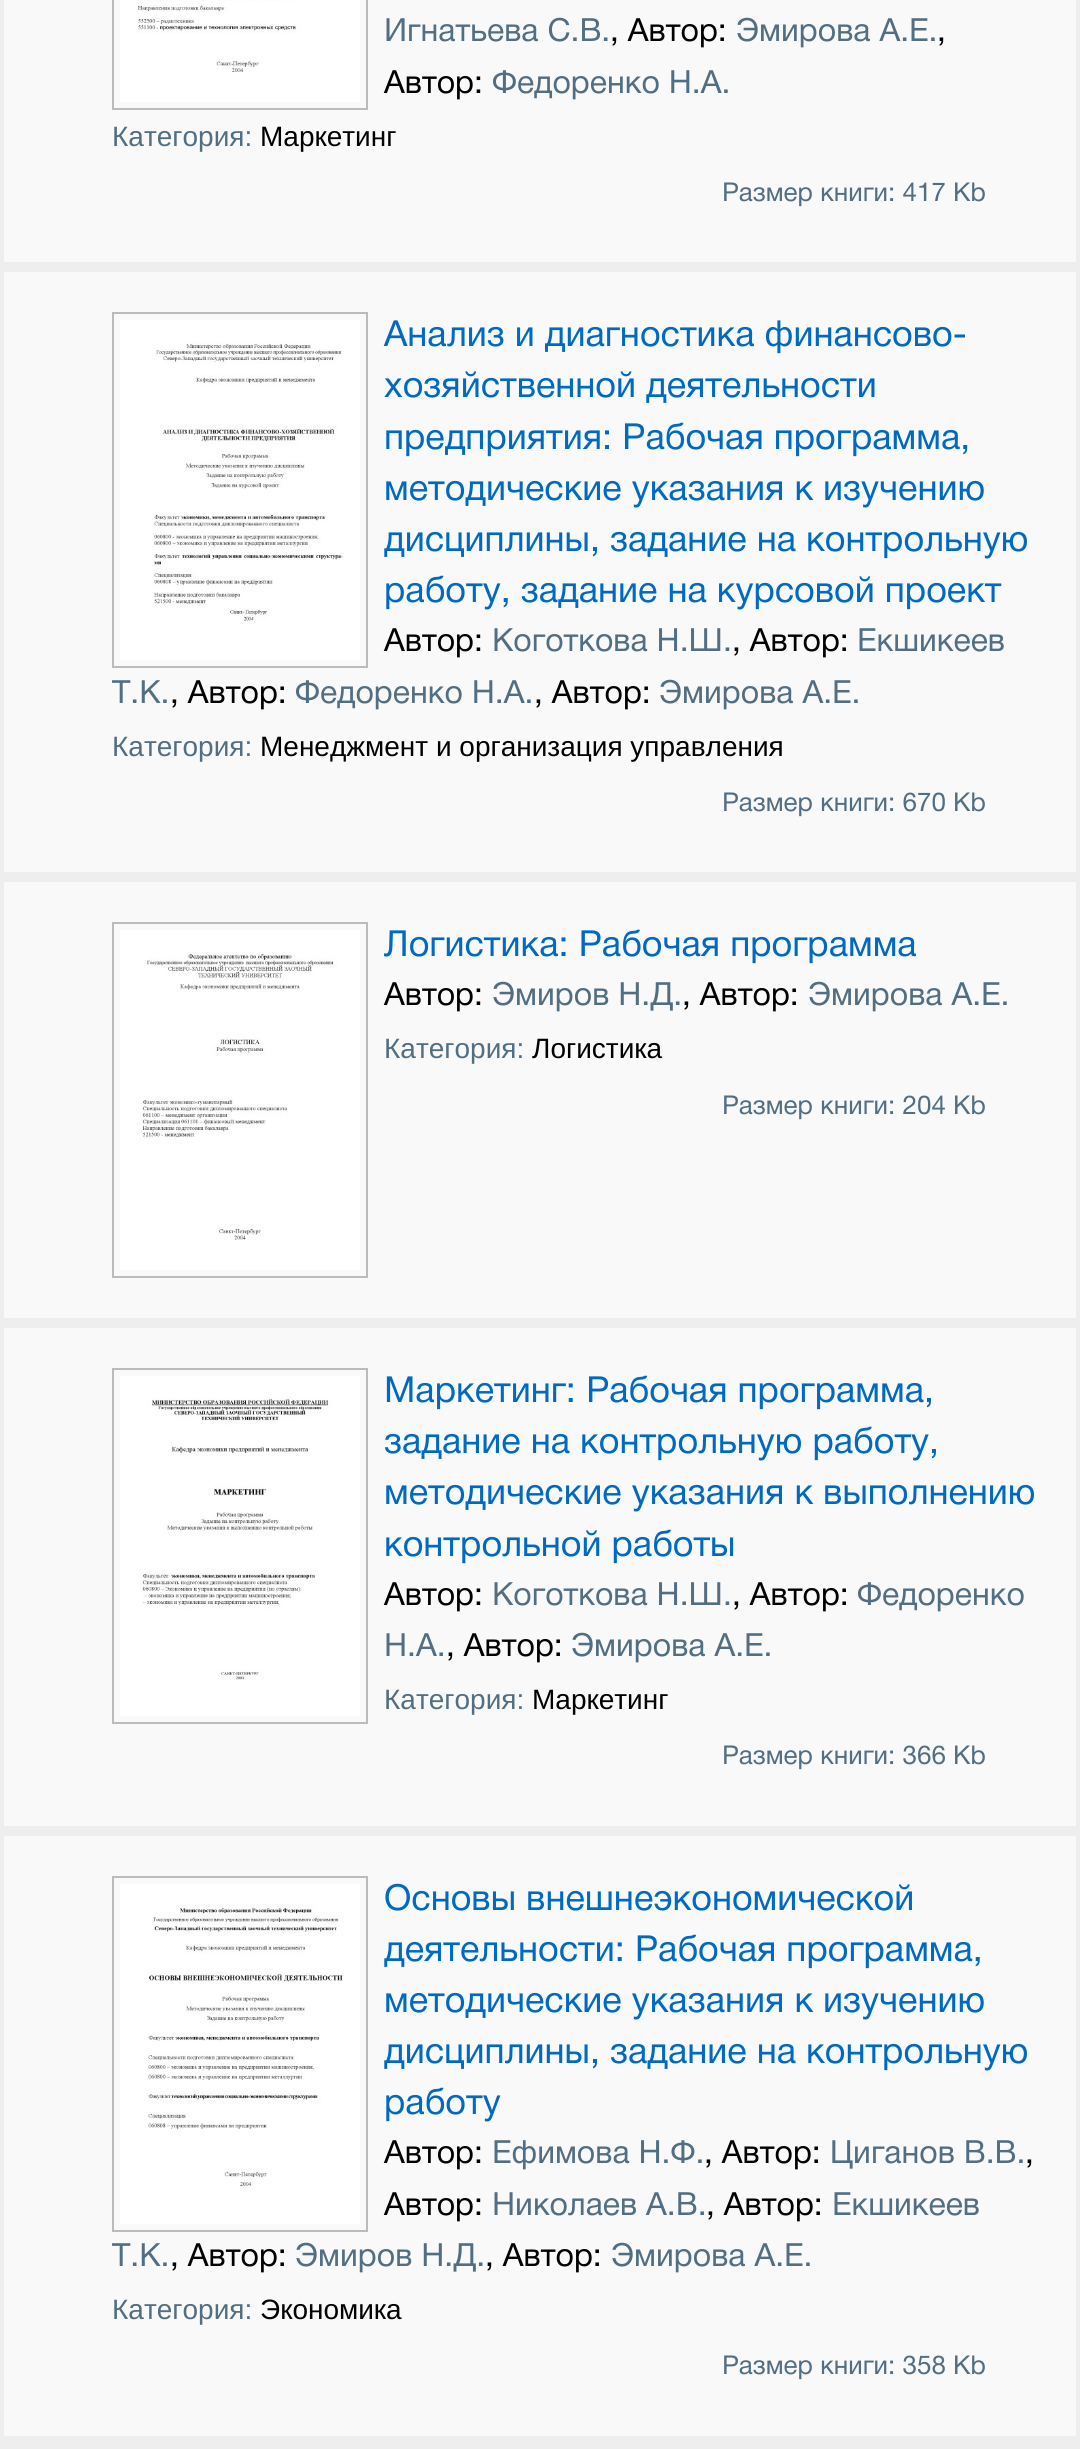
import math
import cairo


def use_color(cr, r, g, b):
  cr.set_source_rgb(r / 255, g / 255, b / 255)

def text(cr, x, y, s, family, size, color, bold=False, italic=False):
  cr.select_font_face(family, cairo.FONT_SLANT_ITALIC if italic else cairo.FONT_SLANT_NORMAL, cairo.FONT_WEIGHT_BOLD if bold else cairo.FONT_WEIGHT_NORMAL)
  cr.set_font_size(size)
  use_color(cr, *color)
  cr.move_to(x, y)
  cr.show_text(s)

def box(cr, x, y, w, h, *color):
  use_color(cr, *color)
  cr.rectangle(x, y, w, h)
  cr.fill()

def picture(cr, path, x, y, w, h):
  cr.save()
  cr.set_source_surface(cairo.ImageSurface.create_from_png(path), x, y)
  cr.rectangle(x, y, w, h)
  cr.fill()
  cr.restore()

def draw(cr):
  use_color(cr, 238, 238, 238)
  cr.paint()
  box(cr, 4, 0, 1072, 262, 249, 249, 249)
  cr.rectangle(113, -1, 254, 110)
  use_color(cr, 187, 187, 187)
  cr.stroke()
  picture(cr, "img_01.png", 120, 0, 240, 102)
  box(cr, 4, 272, 1072, 600, 249, 249, 249)
  cr.rectangle(113, 313, 254, 354)
  use_color(cr, 187, 187, 187)
  cr.stroke()
  picture(cr, "img_02.png", 120, 320, 240, 340)
  box(cr, 4, 882, 1072, 436, 249, 249, 249)
  cr.rectangle(113, 923, 254, 354)
  use_color(cr, 187, 187, 187)
  cr.stroke()
  picture(cr, "img_03.png", 120, 930, 240, 340)
  box(cr, 4, 1328, 1072, 498, 249, 249, 249)
  cr.rectangle(113, 1369, 254, 354)
  use_color(cr, 187, 187, 187)
  cr.stroke()
  picture(cr, "img_04.png", 120, 1376, 240, 340)
  box(cr, 4, 1836, 1072, 600, 249, 249, 249)
  cr.rectangle(113, 1877, 254, 354)
  use_color(cr, 187, 187, 187)
  cr.stroke()
  picture(cr, "img_05.png", 120, 1884, 240, 340)
  text(cr, 384, 41, "Игнатьева С.В.", "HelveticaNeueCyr", 32, (82, 110, 130))
  text(cr, 610, 41, ", Автор:", "HelveticaNeueCyr", 32, (0, 0, 0))
  text(cr, 736, 41, "Эмирова А.Е.", "HelveticaNeueCyr", 32, (82, 110, 130))
  text(cr, 937, 41, ",", "HelveticaNeueCyr", 32, (0, 0, 0))
  text(cr, 384, 93, "Автор:", "HelveticaNeueCyr", 32, (0, 0, 0))
  text(cr, 492, 93, "Федоренко Н.А.", "HelveticaNeueCyr", 32, (82, 110, 130))
  text(cr, 112, 146, "Категория:", "Liberation Sans", 28, (82, 110, 130))
  text(cr, 260, 146, "Маркетинг", "Liberation Sans", 28, (0, 0, 0))
  text(cr, 722, 201, "Размер книги: 417 Kb", "HelveticaNeueCyr", 26, (82, 110, 130))
  text(cr, 384, 346, "Анализ и диагностика финансово-", "HelveticaNeueCyr", 36, (0, 105, 194))
  text(cr, 384, 397, "хозяйственной деятельности", "HelveticaNeueCyr", 36, (0, 105, 194))
  text(cr, 384, 449, "предприятия: Рабочая программа,", "HelveticaNeueCyr", 36, (0, 105, 194))
  text(cr, 384, 500, "методические указания к изучению", "HelveticaNeueCyr", 36, (0, 105, 194))
  text(cr, 384, 551, "дисциплины, задание на контрольную", "HelveticaNeueCyr", 36, (0, 105, 194))
  text(cr, 384, 602, "работу, задание на курсовой проект", "HelveticaNeueCyr", 36, (0, 105, 194))
  text(cr, 384, 651, "Автор:", "HelveticaNeueCyr", 32, (0, 0, 0))
  text(cr, 492, 651, "Коготкова Н.Ш.", "HelveticaNeueCyr", 32, (82, 110, 130))
  text(cr, 732, 651, ", Автор:", "HelveticaNeueCyr", 32, (0, 0, 0))
  text(cr, 857, 651, "Екшикеев", "HelveticaNeueCyr", 32, (82, 110, 130))
  text(cr, 112, 703, "Т.К.", "HelveticaNeueCyr", 32, (82, 110, 130))
  text(cr, 170, 703, ", Автор:", "HelveticaNeueCyr", 32, (0, 0, 0))
  text(cr, 295, 703, "Федоренко Н.А.", "HelveticaNeueCyr", 32, (82, 110, 130))
  text(cr, 534, 703, ", Автор:", "HelveticaNeueCyr", 32, (0, 0, 0))
  text(cr, 659, 703, "Эмирова А.Е.", "HelveticaNeueCyr", 32, (82, 110, 130))
  text(cr, 112, 756, "Категория:", "Liberation Sans", 28, (82, 110, 130))
  text(cr, 260, 756, "Менеджмент и организация управления", "Liberation Sans", 28, (0, 0, 0))
  text(cr, 722, 811, "Размер книги: 670 Kb", "HelveticaNeueCyr", 26, (82, 110, 130))
  text(cr, 384, 956, "Логистика: Рабочая программа", "HelveticaNeueCyr", 36, (0, 105, 194))
  text(cr, 384, 1005, "Автор:", "HelveticaNeueCyr", 32, (0, 0, 0))
  text(cr, 492, 1005, "Эмиров Н.Д.", "HelveticaNeueCyr", 32, (82, 110, 130))
  text(cr, 682, 1005, ", Автор:", "HelveticaNeueCyr", 32, (0, 0, 0))
  text(cr, 808, 1005, "Эмирова А.Е.", "HelveticaNeueCyr", 32, (82, 110, 130))
  text(cr, 384, 1058, "Категория:", "Liberation Sans", 28, (82, 110, 130))
  text(cr, 532, 1058, "Логистика", "Liberation Sans", 28, (0, 0, 0))
  text(cr, 722, 1114, "Размер книги: 204 Kb", "HelveticaNeueCyr", 26, (82, 110, 130))
  text(cr, 384, 1402, "Маркетинг: Рабочая программа,", "HelveticaNeueCyr", 36, (0, 105, 194))
  text(cr, 384, 1453, "задание на контрольную работу,", "HelveticaNeueCyr", 36, (0, 105, 194))
  text(cr, 384, 1504, "методические указания к выполнению", "HelveticaNeueCyr", 36, (0, 105, 194))
  text(cr, 384, 1556, "контрольной работы", "HelveticaNeueCyr", 36, (0, 105, 194))
  text(cr, 384, 1605, "Автор:", "HelveticaNeueCyr", 32, (0, 0, 0))
  text(cr, 492, 1605, "Коготкова Н.Ш.", "HelveticaNeueCyr", 32, (82, 110, 130))
  text(cr, 732, 1605, ", Автор:", "HelveticaNeueCyr", 32, (0, 0, 0))
  text(cr, 857, 1605, "Федоренко", "HelveticaNeueCyr", 32, (82, 110, 130))
  text(cr, 384, 1656, "Н.А.", "HelveticaNeueCyr", 32, (82, 110, 130))
  text(cr, 446, 1656, ", Автор:", "HelveticaNeueCyr", 32, (0, 0, 0))
  text(cr, 571, 1656, "Эмирова А.Е.", "HelveticaNeueCyr", 32, (82, 110, 130))
  text(cr, 384, 1709, "Категория:", "Liberation Sans", 28, (82, 110, 130))
  text(cr, 532, 1709, "Маркетинг", "Liberation Sans", 28, (0, 0, 0))
  text(cr, 722, 1764, "Размер книги: 366 Kb", "HelveticaNeueCyr", 26, (82, 110, 130))
  text(cr, 384, 1910, "Основы внешнеэкономической", "HelveticaNeueCyr", 36, (0, 105, 194))
  text(cr, 384, 1961, "деятельности: Рабочая программа,", "HelveticaNeueCyr", 36, (0, 105, 194))
  text(cr, 384, 2012, "методические указания к изучению", "HelveticaNeueCyr", 36, (0, 105, 194))
  text(cr, 384, 2063, "дисциплины, задание на контрольную", "HelveticaNeueCyr", 36, (0, 105, 194))
  text(cr, 384, 2114, "работу", "HelveticaNeueCyr", 36, (0, 105, 194))
  text(cr, 384, 2163, "Автор:", "HelveticaNeueCyr", 32, (0, 0, 0))
  text(cr, 492, 2163, "Ефимова Н.Ф.", "HelveticaNeueCyr", 32, (82, 110, 130))
  text(cr, 704, 2163, ", Автор:", "HelveticaNeueCyr", 32, (0, 0, 0))
  text(cr, 830, 2163, "Циганов В.В.", "HelveticaNeueCyr", 32, (82, 110, 130))
  text(cr, 1025, 2163, ",", "HelveticaNeueCyr", 32, (0, 0, 0))
  text(cr, 384, 2215, "Автор:", "HelveticaNeueCyr", 32, (0, 0, 0))
  text(cr, 492, 2215, "Николаев А.В.", "HelveticaNeueCyr", 32, (82, 110, 130))
  text(cr, 706, 2215, ", Автор:", "HelveticaNeueCyr", 32, (0, 0, 0))
  text(cr, 832, 2215, "Екшикеев", "HelveticaNeueCyr", 32, (82, 110, 130))
  text(cr, 112, 2266, "Т.К.", "HelveticaNeueCyr", 32, (82, 110, 130))
  text(cr, 170, 2266, ", Автор:", "HelveticaNeueCyr", 32, (0, 0, 0))
  text(cr, 295, 2266, "Эмиров Н.Д.", "HelveticaNeueCyr", 32, (82, 110, 130))
  text(cr, 485, 2266, ", Автор:", "HelveticaNeueCyr", 32, (0, 0, 0))
  text(cr, 611, 2266, "Эмирова А.Е.", "HelveticaNeueCyr", 32, (82, 110, 130))
  text(cr, 112, 2319, "Категория:", "Liberation Sans", 28, (82, 110, 130))
  text(cr, 260, 2319, "Экономика", "Liberation Sans", 28, (0, 0, 0))
  text(cr, 722, 2374, "Размер книги: 358 Kb", "HelveticaNeueCyr", 26, (82, 110, 130))


surface = cairo.ImageSurface(cairo.FORMAT_RGB24, 1080, 2449)
cr = cairo.Context(surface)
options = cairo.FontOptions()
options.set_hint_metrics(cairo.HINT_METRICS_OFF)
options.set_hint_style(cairo.HINT_STYLE_NONE)
cr.set_font_options(options)
cr.set_miter_limit(4)
draw(cr)
surface.write_to_png("out.png")
